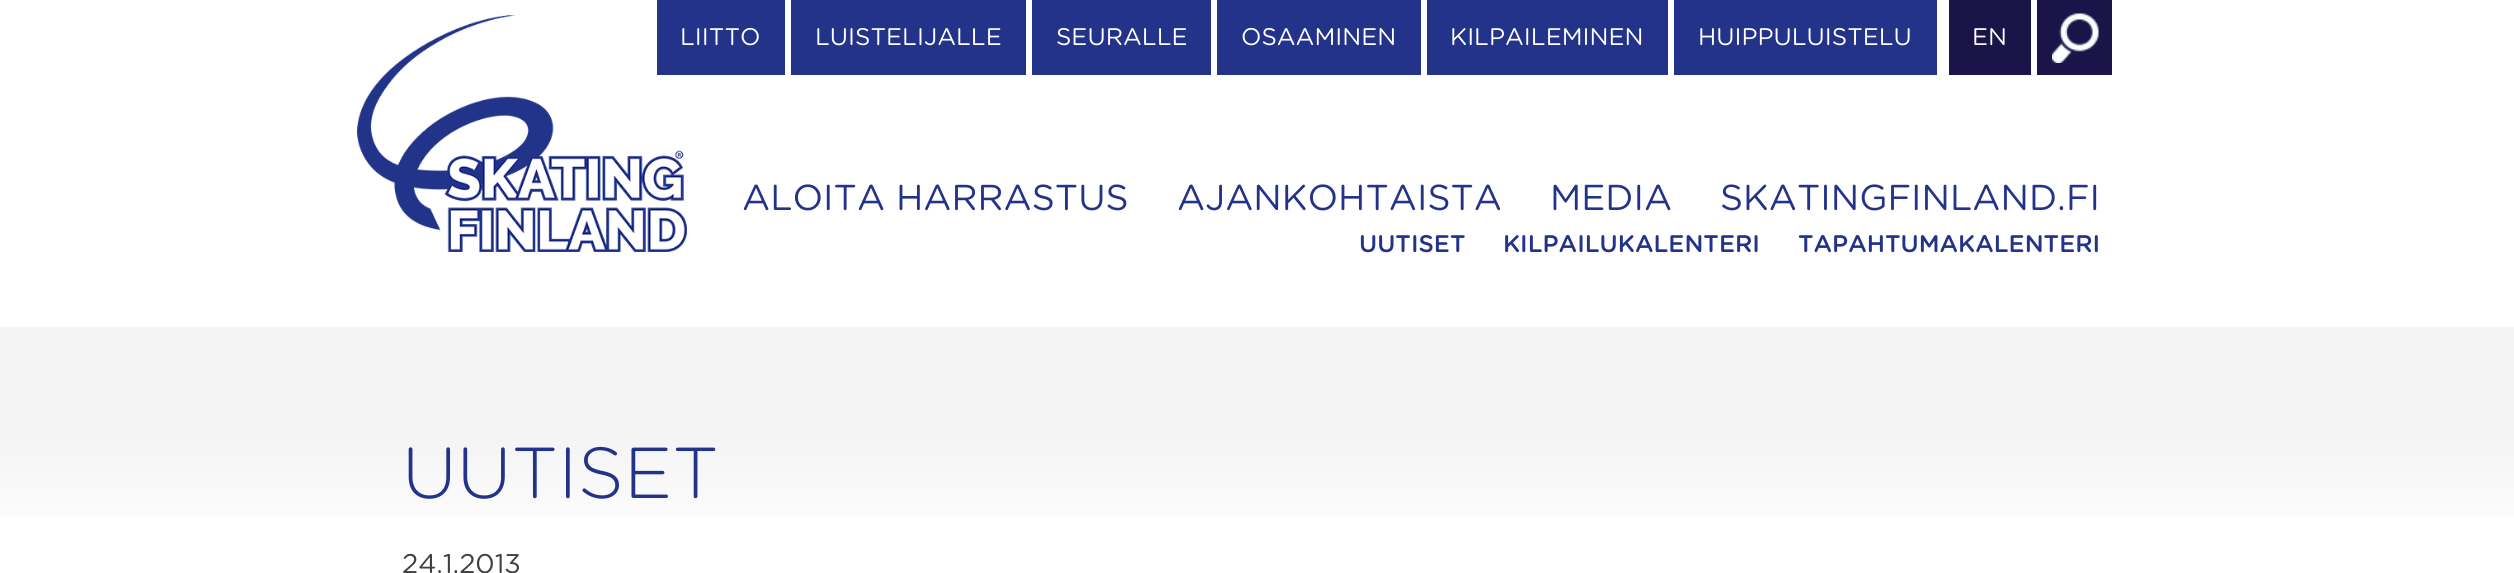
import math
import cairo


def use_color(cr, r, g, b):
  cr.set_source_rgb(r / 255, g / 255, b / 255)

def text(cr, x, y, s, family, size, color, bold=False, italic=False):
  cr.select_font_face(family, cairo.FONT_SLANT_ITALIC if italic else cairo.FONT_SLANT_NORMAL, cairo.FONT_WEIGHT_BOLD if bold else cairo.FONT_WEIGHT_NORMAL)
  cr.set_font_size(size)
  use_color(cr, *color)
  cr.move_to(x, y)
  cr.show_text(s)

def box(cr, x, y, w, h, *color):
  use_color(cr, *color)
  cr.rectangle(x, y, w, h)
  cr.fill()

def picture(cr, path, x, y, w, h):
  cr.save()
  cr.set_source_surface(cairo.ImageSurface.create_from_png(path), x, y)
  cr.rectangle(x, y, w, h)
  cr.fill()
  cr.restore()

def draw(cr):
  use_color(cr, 255, 255, 255)
  cr.paint()
  picture(cr, "img_01.png", 0, 327, 2514, 189)
  box(cr, 657, 0, 128, 75, 36, 51, 138)
  box(cr, 791, 0, 235, 75, 36, 51, 138)
  box(cr, 1032, 0, 179, 75, 36, 51, 138)
  box(cr, 1217, 0, 204, 75, 36, 51, 138)
  box(cr, 1427, 0, 241, 75, 36, 51, 138)
  box(cr, 1674, 0, 263, 75, 36, 51, 138)
  box(cr, 1949, 0, 82, 75, 26, 20, 73)
  box(cr, 2037, 0, 75, 75, 26, 20, 73)
  picture(cr, "img_03.png", 2052, 13, 47, 50)
  text(cr, 680, 45, "LIITTO", "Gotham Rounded", 24, (255, 255, 255))
  picture(cr, "img_02.png", 357, 15, 330, 237)
  text(cr, 815, 45, "LUISTELIJALLE", "Gotham Rounded", 24, (255, 255, 255))
  text(cr, 1056, 45, "SEURALLE", "Gotham Rounded", 24, (255, 255, 255))
  text(cr, 1241, 45, "OSAAMINEN", "Gotham Rounded", 24, (255, 255, 255))
  text(cr, 1450, 45, "KILPAILEMINEN", "Gotham Rounded", 24, (255, 255, 255))
  text(cr, 1698, 45, "HUIPPULUISTELU", "Gotham Rounded", 24, (255, 255, 255))
  text(cr, 1972, 45, "EN", "Gotham Rounded", 24, (255, 255, 255))
  text(cr, 742, 210, "ALOITA HARRASTUS", "Gotham Rounded", 36, (36, 51, 138))
  text(cr, 1177, 210, "AJANKOHTAISTA", "Gotham Rounded", 36, (36, 51, 138))
  text(cr, 1550, 210, "MEDIA", "Gotham Rounded", 36, (36, 51, 138))
  text(cr, 1720, 210, "SKATINGFINLAND.FI", "Gotham Rounded", 36, (36, 51, 138))
  text(cr, 1359, 252, "UUTISET", "Gotham Rounded Medium", 24, (36, 51, 138))
  text(cr, 1503, 252, "KILPAILUKALENTERI", "Gotham Rounded Medium", 24, (36, 51, 138))
  text(cr, 1798, 252, "TAPAHTUMAKALENTERI", "Gotham Rounded Medium", 24, (36, 51, 138))
  text(cr, 402, 498, "UUTISET", "Gotham Rounded Light", 72, (36, 51, 138))
  text(cr, 402, 573, "24.1.2013", "Gotham Rounded", 27, (64, 64, 64))


surface = cairo.ImageSurface(cairo.FORMAT_RGB24, 2514, 573)
cr = cairo.Context(surface)
options = cairo.FontOptions()
options.set_hint_metrics(cairo.HINT_METRICS_OFF)
options.set_hint_style(cairo.HINT_STYLE_NONE)
cr.set_font_options(options)
cr.set_miter_limit(4)
draw(cr)
surface.write_to_png("out.png")
